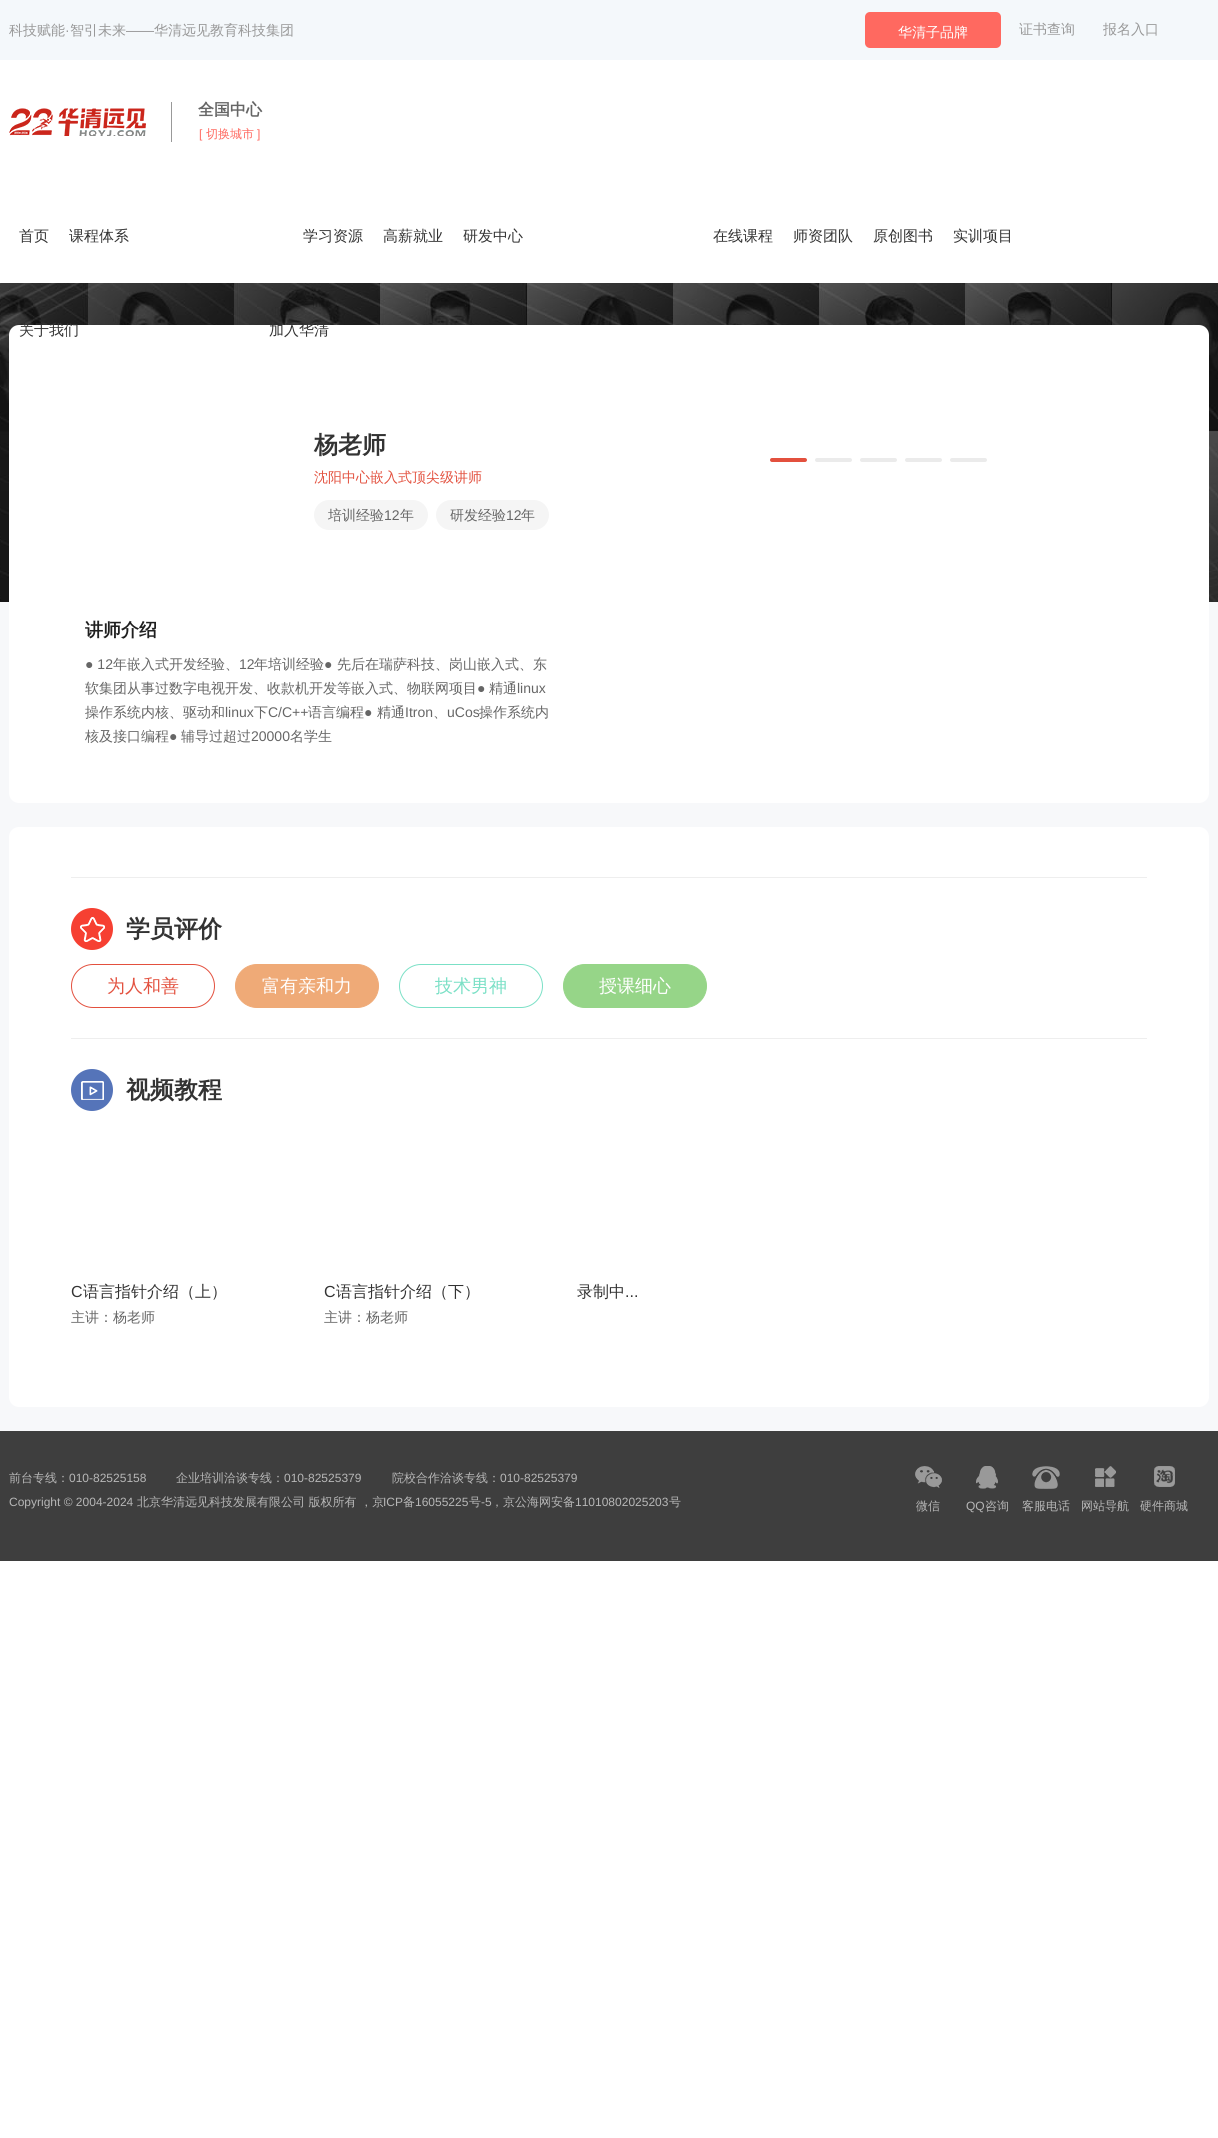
import math
import cairo


def use_color(cr, r, g, b):
  cr.set_source_rgb(r / 255, g / 255, b / 255)

def text(cr, x, y, s, family, size, color, bold=False, italic=False):
  cr.select_font_face(family, cairo.FONT_SLANT_ITALIC if italic else cairo.FONT_SLANT_NORMAL, cairo.FONT_WEIGHT_BOLD if bold else cairo.FONT_WEIGHT_NORMAL)
  cr.set_font_size(size)
  use_color(cr, *color)
  cr.move_to(x, y)
  cr.show_text(s)

def box(cr, x, y, w, h, *color):
  use_color(cr, *color)
  cr.rectangle(x, y, w, h)
  cr.fill()

def round_rect(cr, x, y, w, h, r):
  cr.new_sub_path()
  for i, (u, v) in enumerate([(x + w - r, y + h - r), (x + r, y + h - r), (x + r, y + r), (x + w - r, y + r)]):
    cr.arc(u, v, r, i * math.pi / 2, (i + 1) * math.pi / 2)
  cr.close_path()

def picture(cr, path, x, y, w, h):
  cr.save()
  cr.set_source_surface(cairo.ImageSurface.create_from_png(path), x, y)
  cr.rectangle(x, y, w, h)
  cr.fill()
  cr.restore()

def draw(cr):
  use_color(cr, 255, 255, 255)
  cr.paint()
  box(cr, 0, 0, 1218, 60, 244, 248, 251)
  use_color(cr, 255, 105, 96)
  round_rect(cr, 865, 12, 136, 36, 5)
  cr.fill()
  picture(cr, "img_01.png", 9, 108, 137, 28)
  box(cr, 171, 102, 1, 40, 153, 153, 153)
  box(cr, 0, 602, 1218, 829, 247, 248, 250)
  picture(cr, "img_02.png", 0, 283, 1218, 319)
  use_color(cr, 255, 255, 255)
  round_rect(cr, 9, 325, 1200, 478, 10)
  cr.fill()
  use_color(cr, 245, 245, 245)
  round_rect(cr, 314, 500, 114, 30, 15)
  cr.fill()
  round_rect(cr, 436, 500, 113, 30, 15)
  cr.fill()
  use_color(cr, 227, 80, 62)
  round_rect(cr, 770, 458, 37, 4, 2)
  cr.fill()
  use_color(cr, 235, 235, 235)
  round_rect(cr, 815, 458, 37, 4, 2)
  cr.fill()
  round_rect(cr, 860, 458, 37, 4, 2)
  cr.fill()
  round_rect(cr, 905, 458, 37, 4, 2)
  cr.fill()
  round_rect(cr, 950, 458, 37, 4, 2)
  cr.fill()
  use_color(cr, 255, 255, 255)
  round_rect(cr, 9, 827, 1200, 580, 10)
  cr.fill()
  box(cr, 71, 877, 1076, 1, 238, 238, 238)
  picture(cr, "img_03.png", 71, 908, 42, 42)
  round_rect(cr, 71.5, 964.5, 143, 43, 21.5)
  use_color(cr, 227, 80, 62)
  cr.set_line_width(1)
  cr.stroke()
  use_color(cr, 239, 170, 119)
  round_rect(cr, 235.5, 964.5, 143, 43, 21.5)
  cr.fill_preserve()
  cr.stroke()
  round_rect(cr, 399.5, 964.5, 143, 43, 21.5)
  use_color(cr, 123, 224, 198)
  cr.stroke()
  use_color(cr, 150, 213, 136)
  round_rect(cr, 563.5, 964.5, 143, 43, 21.5)
  cr.fill_preserve()
  cr.stroke()
  box(cr, 71, 1038, 1076, 1, 238, 238, 238)
  picture(cr, "img_04.png", 71, 1069, 42, 42)
  box(cr, 0, 1431, 1218, 130, 62, 62, 62)
  picture(cr, "img_05.png", 915, 1466, 27, 22)
  picture(cr, "img_06.png", 976, 1466, 22, 23)
  picture(cr, "img_07.png", 1032, 1466, 28, 23)
  picture(cr, "img_08.png", 1095, 1466, 21, 21)
  picture(cr, "img_09.png", 1154, 1466, 21, 21)
  text(cr, 9, 35, "科技赋能", "WenQuanYi Zen Hei Medium", 14, (153, 153, 153))
  text(cr, 65, 35, "·", "Liberation Sans", 14, (153, 153, 153))
  text(cr, 70, 35, "智引未来", "WenQuanYi Zen Hei Medium", 14, (153, 153, 153))
  text(cr, 126, 35, "——", "Liberation Sans", 14, (153, 153, 153))
  text(cr, 154, 35, "华清远见教育科技集团", "WenQuanYi Zen Hei Medium", 14, (153, 153, 153))
  text(cr, 898, 37, "华清子品牌", "WenQuanYi Zen Hei Medium", 14, (255, 255, 255))
  text(cr, 1019, 34, "证书查询", "WenQuanYi Zen Hei Medium", 14, (153, 153, 153))
  text(cr, 1103, 34, "报名入口", "WenQuanYi Zen Hei Medium", 14, (153, 153, 153))
  text(cr, 198, 115, "全国中心", "WenQuanYi Zen Hei", 16, (102, 102, 102), bold=True)
  text(cr, 199, 138, "[", "Liberation Sans", 12, (255, 105, 96))
  text(cr, 206, 138, "切换城市", "WenQuanYi Zen Hei Medium", 12, (255, 105, 96))
  text(cr, 257, 138, "]", "Liberation Sans", 12, (255, 105, 96))
  text(cr, 19, 241, "首页", "WenQuanYi Zen Hei Medium", 15, (51, 51, 51))
  text(cr, 69, 241, "课程体系", "WenQuanYi Zen Hei Medium", 15, (51, 51, 51))
  text(cr, 303, 241, "学习资源", "WenQuanYi Zen Hei Medium", 15, (51, 51, 51))
  text(cr, 383, 241, "高薪就业", "WenQuanYi Zen Hei Medium", 15, (51, 51, 51))
  text(cr, 463, 241, "研发中心", "WenQuanYi Zen Hei Medium", 15, (51, 51, 51))
  text(cr, 713, 241, "在线课程", "WenQuanYi Zen Hei Medium", 15, (51, 51, 51))
  text(cr, 793, 241, "师资团队", "WenQuanYi Zen Hei Medium", 15, (51, 51, 51))
  text(cr, 873, 241, "原创图书", "WenQuanYi Zen Hei Medium", 15, (51, 51, 51))
  text(cr, 953, 241, "实训项目", "WenQuanYi Zen Hei Medium", 15, (51, 51, 51))
  text(cr, 19, 335, "关于我们", "WenQuanYi Zen Hei Medium", 15, (51, 51, 51))
  text(cr, 269, 335, "加入华清", "WenQuanYi Zen Hei Medium", 15, (51, 51, 51))
  text(cr, 314, 453, "杨老师", "WenQuanYi Zen Hei", 24, (51, 51, 51), bold=True)
  text(cr, 314, 482, "沈阳中心嵌入式顶尖级讲师", "WenQuanYi Zen Hei Medium", 14, (227, 82, 64))
  text(cr, 328, 520, "培训经验", "WenQuanYi Zen Hei Medium", 14, (102, 102, 102))
  text(cr, 384, 520, "12", "Liberation Sans", 14, (102, 102, 102))
  text(cr, 400, 520, "年", "WenQuanYi Zen Hei Medium", 14, (102, 102, 102))
  text(cr, 450, 520, "研发经验", "WenQuanYi Zen Hei Medium", 14, (102, 102, 102))
  text(cr, 506, 520, "12", "Liberation Sans", 14, (102, 102, 102))
  text(cr, 521, 520, "年", "WenQuanYi Zen Hei Medium", 14, (102, 102, 102))
  text(cr, 85, 636, "讲师介绍", "WenQuanYi Zen Hei", 18, (31, 31, 31), bold=True)
  text(cr, 85, 669, "● 12", "Liberation Sans", 14, (102, 102, 102))
  text(cr, 113, 669, "年嵌入式开发经验、", "WenQuanYi Zen Hei Medium", 14, (102, 102, 102))
  text(cr, 239, 669, "12", "Liberation Sans", 14, (102, 102, 102))
  text(cr, 254, 669, "年培训经验", "WenQuanYi Zen Hei Medium", 14, (102, 102, 102))
  text(cr, 324, 669, "●", "Liberation Sans", 14, (102, 102, 102))
  text(cr, 337, 669, "先后在瑞萨科技、岗山嵌入式、东", "WenQuanYi Zen Hei Medium", 14, (102, 102, 102))
  text(cr, 85, 693, "软集团从事过数字电视开发、收款机开发等嵌入式、物联网项目", "WenQuanYi Zen Hei Medium", 14, (102, 102, 102))
  text(cr, 477, 693, "●", "Liberation Sans", 14, (102, 102, 102))
  text(cr, 489, 693, "精通", "WenQuanYi Zen Hei Medium", 14, (102, 102, 102))
  text(cr, 517, 693, "linux", "Liberation Sans", 14, (102, 102, 102))
  text(cr, 85, 717, "操作系统内核、驱动和", "WenQuanYi Zen Hei Medium", 14, (102, 102, 102))
  text(cr, 225, 717, "linux", "Liberation Sans", 14, (102, 102, 102))
  text(cr, 254, 717, "下", "WenQuanYi Zen Hei Medium", 14, (102, 102, 102))
  text(cr, 268, 717, "C/C++", "Liberation Sans", 14, (102, 102, 102))
  text(cr, 308, 717, "语言编程", "WenQuanYi Zen Hei Medium", 14, (102, 102, 102))
  text(cr, 364, 717, "●", "Liberation Sans", 14, (102, 102, 102))
  text(cr, 377, 717, "精通", "WenQuanYi Zen Hei Medium", 14, (102, 102, 102))
  text(cr, 405, 717, "Itron", "Liberation Sans", 14, (102, 102, 102))
  text(cr, 433, 717, "、", "WenQuanYi Zen Hei Medium", 14, (102, 102, 102))
  text(cr, 447, 717, "uCos", "Liberation Sans", 14, (102, 102, 102))
  text(cr, 479, 717, "操作系统内", "WenQuanYi Zen Hei Medium", 14, (102, 102, 102))
  text(cr, 85, 741, "核及接口编程", "WenQuanYi Zen Hei Medium", 14, (102, 102, 102))
  text(cr, 169, 741, "●", "Liberation Sans", 14, (102, 102, 102))
  text(cr, 181, 741, "辅导过超过", "WenQuanYi Zen Hei Medium", 14, (102, 102, 102))
  text(cr, 251, 741, "20000", "Liberation Sans", 14, (102, 102, 102))
  text(cr, 290, 741, "名学生", "WenQuanYi Zen Hei Medium", 14, (102, 102, 102))
  text(cr, 126, 937, "学员评价", "WenQuanYi Zen Hei", 24, (51, 51, 51), bold=True)
  text(cr, 107, 992, "为人和善", "WenQuanYi Zen Hei Medium", 18, (227, 82, 64))
  text(cr, 262, 992, "富有亲和力", "WenQuanYi Zen Hei Medium", 18, (255, 255, 255))
  text(cr, 435, 992, "技术男神", "WenQuanYi Zen Hei Medium", 18, (123, 224, 198))
  text(cr, 599, 992, "授课细心", "WenQuanYi Zen Hei Medium", 18, (255, 255, 255))
  text(cr, 126, 1098, "视频教程", "WenQuanYi Zen Hei", 24, (51, 51, 51), bold=True)
  text(cr, 71, 1297, "C", "Liberation Sans", 16, (51, 51, 51))
  text(cr, 83, 1297, "语言指针介绍（上）", "WenQuanYi Zen Hei Medium", 16, (51, 51, 51))
  text(cr, 71, 1322, "主讲：杨老师", "WenQuanYi Zen Hei Medium", 14, (102, 102, 102))
  text(cr, 324, 1297, "C", "Liberation Sans", 16, (51, 51, 51))
  text(cr, 336, 1297, "语言指针介绍（下）", "WenQuanYi Zen Hei Medium", 16, (51, 51, 51))
  text(cr, 324, 1322, "主讲：杨老师", "WenQuanYi Zen Hei Medium", 14, (102, 102, 102))
  text(cr, 577, 1297, "录制中", "WenQuanYi Zen Hei Medium", 16, (51, 51, 51))
  text(cr, 625, 1297, "...", "Liberation Sans", 16, (51, 51, 51))
  text(cr, 9, 1482, "前台专线：", "WenQuanYi Zen Hei Medium", 12, (183, 183, 183))
  text(cr, 69, 1482, "010-82525158", "Liberation Sans", 12, (183, 183, 183))
  text(cr, 176, 1482, "企业培训洽谈专线：", "WenQuanYi Zen Hei Medium", 12, (183, 183, 183))
  text(cr, 284, 1482, "010-82525379", "Liberation Sans", 12, (183, 183, 183))
  text(cr, 392, 1482, "院校合作洽谈专线：", "WenQuanYi Zen Hei Medium", 12, (183, 183, 183))
  text(cr, 500, 1482, "010-82525379", "Liberation Sans", 12, (183, 183, 183))
  text(cr, 9, 1506, "Copyright © 2004-2024", "Liberation Sans", 12, (183, 183, 183))
  text(cr, 137, 1506, "北京华清远见科技发展有限公司 版权所有 ，京", "WenQuanYi Zen Hei Medium", 12, (183, 183, 183))
  text(cr, 383, 1506, "ICP", "Liberation Sans", 12, (183, 183, 183))
  text(cr, 403, 1506, "备", "WenQuanYi Zen Hei Medium", 12, (183, 183, 183))
  text(cr, 415, 1506, "16055225", "Liberation Sans", 12, (183, 183, 183))
  text(cr, 469, 1506, "号", "WenQuanYi Zen Hei Medium", 12, (183, 183, 183))
  text(cr, 481, 1506, "-5", "Liberation Sans", 12, (183, 183, 183))
  text(cr, 491, 1506, "，京公海网安备", "WenQuanYi Zen Hei Medium", 12, (183, 183, 183))
  text(cr, 575, 1506, "11010802025203", "Liberation Sans", 12, (183, 183, 183))
  text(cr, 669, 1506, "号", "WenQuanYi Zen Hei Medium", 12, (183, 183, 183))
  text(cr, 916, 1510, "微信", "WenQuanYi Zen Hei Medium", 12, (183, 183, 183))
  text(cr, 966, 1510, "QQ", "Liberation Sans", 12, (183, 183, 183))
  text(cr, 985, 1510, "咨询", "WenQuanYi Zen Hei Medium", 12, (183, 183, 183))
  text(cr, 1022, 1510, "客服电话", "WenQuanYi Zen Hei Medium", 12, (183, 183, 183))
  text(cr, 1081, 1510, "网站导航", "WenQuanYi Zen Hei Medium", 12, (183, 183, 183))
  text(cr, 1140, 1510, "硬件商城", "WenQuanYi Zen Hei Medium", 12, (183, 183, 183))


surface = cairo.ImageSurface(cairo.FORMAT_RGB24, 1218, 2138)
cr = cairo.Context(surface)
options = cairo.FontOptions()
options.set_hint_metrics(cairo.HINT_METRICS_OFF)
options.set_hint_style(cairo.HINT_STYLE_NONE)
cr.set_font_options(options)
cr.set_miter_limit(4)
draw(cr)
surface.write_to_png("out.png")
